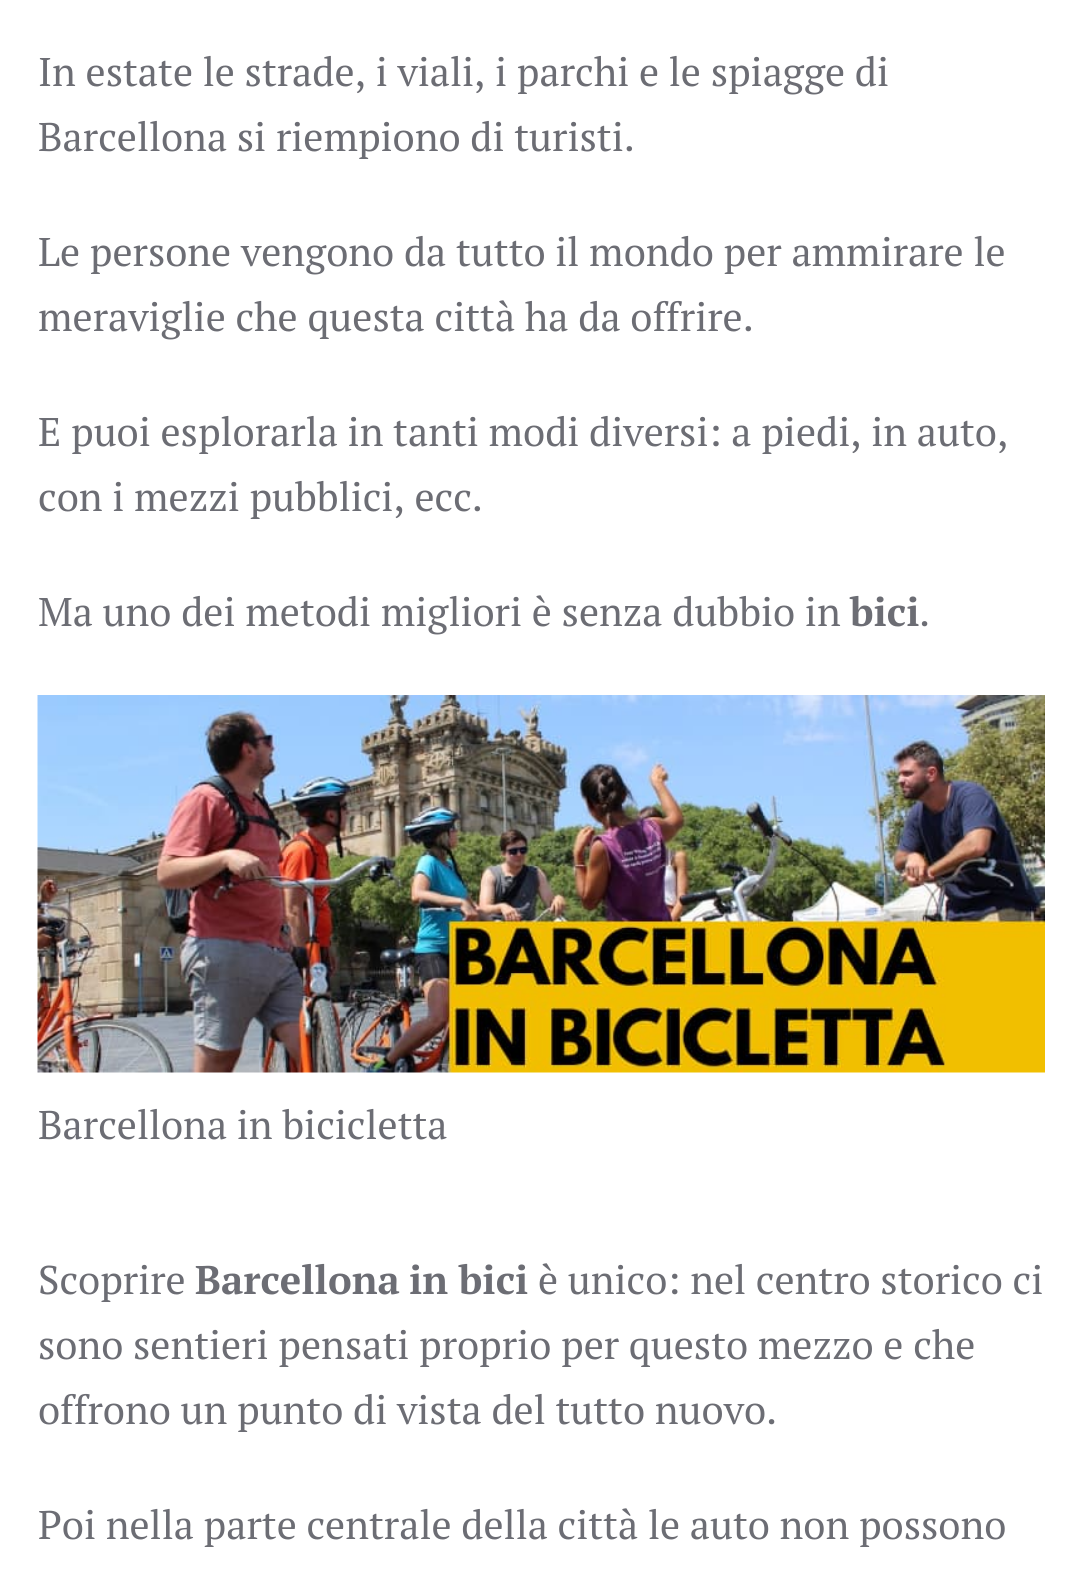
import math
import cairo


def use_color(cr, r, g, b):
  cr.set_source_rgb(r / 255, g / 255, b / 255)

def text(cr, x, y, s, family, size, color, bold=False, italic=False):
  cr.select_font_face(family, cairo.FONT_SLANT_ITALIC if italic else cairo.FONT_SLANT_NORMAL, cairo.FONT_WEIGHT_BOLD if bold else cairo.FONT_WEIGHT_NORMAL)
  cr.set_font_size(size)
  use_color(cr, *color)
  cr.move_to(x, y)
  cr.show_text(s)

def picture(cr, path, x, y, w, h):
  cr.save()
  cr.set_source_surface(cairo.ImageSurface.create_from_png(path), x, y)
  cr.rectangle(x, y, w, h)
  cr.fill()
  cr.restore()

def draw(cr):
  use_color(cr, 255, 255, 255)
  cr.paint()
  picture(cr, "img_01.png", 37, 695, 1008, 378)
  text(cr, 38, 86, "In estate le strade, i viali, i parchi e le spiagge di", "PT Serif", 40, (108, 109, 116))
  text(cr, 38, 151, "Barcellona si riempiono di turisti.", "PT Serif", 40, (108, 109, 116))
  text(cr, 38, 266, "Le persone vengono da tutto il mondo per ammirare le", "PT Serif", 40, (108, 109, 116))
  text(cr, 38, 331, "meraviglie che questa città ha da offrire.", "PT Serif", 40, (108, 109, 116))
  text(cr, 38, 446, "E puoi esplorarla in tanti modi diversi: a piedi, in auto,", "PT Serif", 40, (108, 109, 116))
  text(cr, 38, 511, "con i mezzi pubblici, ecc.", "PT Serif", 40, (108, 109, 116))
  text(cr, 38, 626, "Ma uno dei metodi migliori è senza dubbio in", "PT Serif", 40, (108, 109, 116))
  text(cr, 850, 626, "bici", "PT Serif", 40, (108, 109, 116), bold=True)
  text(cr, 919, 626, ".", "PT Serif", 40, (108, 109, 116))
  text(cr, 38, 1139, "Barcellona in bicicletta", "PT Serif", 40, (108, 109, 116))
  text(cr, 38, 1294, "Scoprire", "PT Serif", 40, (108, 109, 116))
  text(cr, 195, 1294, "Barcellona", "PT Serif", 40, (108, 109, 116), bold=True)
  text(cr, 409, 1294, "in bici", "PT Serif", 40, (108, 109, 116), bold=True)
  text(cr, 538, 1294, "è unico: nel centro storico ci", "PT Serif", 40, (108, 109, 116))
  text(cr, 38, 1359, "sono sentieri pensati proprio per questo mezzo e che", "PT Serif", 40, (108, 109, 116))
  text(cr, 38, 1424, "offrono un punto di vista del tutto nuovo.", "PT Serif", 40, (108, 109, 116))
  text(cr, 38, 1539, "Poi nella parte centrale della città le auto non possono", "PT Serif", 40, (108, 109, 116))


surface = cairo.ImageSurface(cairo.FORMAT_RGB24, 1082, 1594)
cr = cairo.Context(surface)
options = cairo.FontOptions()
options.set_hint_metrics(cairo.HINT_METRICS_OFF)
options.set_hint_style(cairo.HINT_STYLE_NONE)
cr.set_font_options(options)
cr.set_miter_limit(4)
draw(cr)
surface.write_to_png("out.png")
